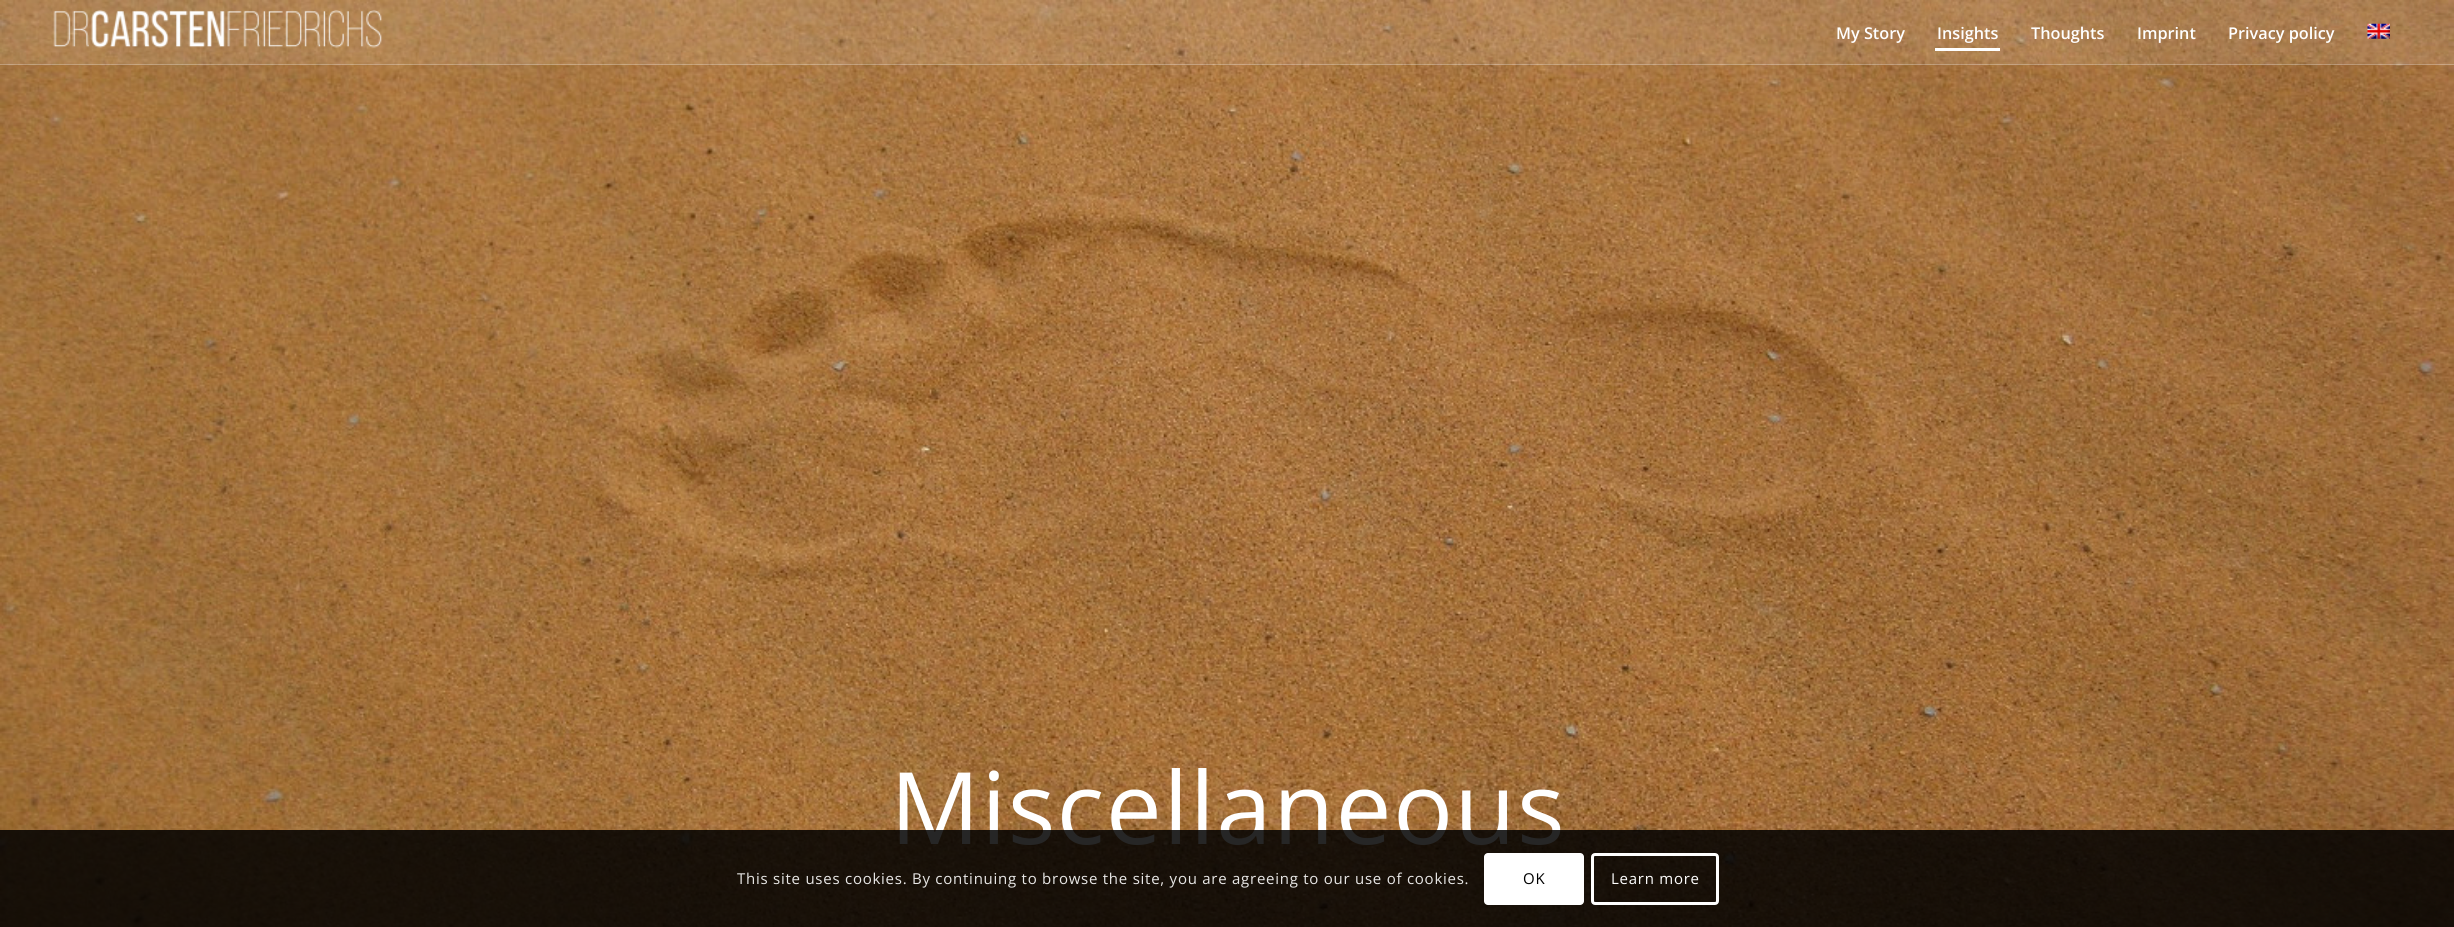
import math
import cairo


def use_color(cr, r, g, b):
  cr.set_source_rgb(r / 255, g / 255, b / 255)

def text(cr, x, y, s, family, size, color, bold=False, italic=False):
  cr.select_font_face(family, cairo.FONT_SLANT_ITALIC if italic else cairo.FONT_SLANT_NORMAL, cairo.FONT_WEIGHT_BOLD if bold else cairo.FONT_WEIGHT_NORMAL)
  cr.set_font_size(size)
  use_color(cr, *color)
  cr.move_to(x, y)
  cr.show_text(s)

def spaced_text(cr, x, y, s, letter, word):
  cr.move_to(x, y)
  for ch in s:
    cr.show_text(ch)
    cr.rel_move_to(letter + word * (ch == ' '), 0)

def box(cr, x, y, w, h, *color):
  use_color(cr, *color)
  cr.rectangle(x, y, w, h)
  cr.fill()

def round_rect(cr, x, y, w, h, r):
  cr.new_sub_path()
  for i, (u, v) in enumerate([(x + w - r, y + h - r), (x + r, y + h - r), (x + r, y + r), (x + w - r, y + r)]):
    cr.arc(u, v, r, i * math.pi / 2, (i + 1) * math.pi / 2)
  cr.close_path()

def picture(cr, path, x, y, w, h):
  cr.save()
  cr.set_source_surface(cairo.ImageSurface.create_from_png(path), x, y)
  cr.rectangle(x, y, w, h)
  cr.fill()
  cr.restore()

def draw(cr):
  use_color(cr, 255, 255, 255)
  cr.paint()
  picture(cr, "img_03.png", 0, 0, 2454, 927)
  cr.set_source_rgba(1, 1, 1, 0.1)
  cr.rectangle(0, 0, 2454, 65)
  cr.fill()
  cr.set_source_rgba(1, 1, 1, 0.25)
  cr.rectangle(0, 64, 2454, 1)
  cr.fill()
  picture(cr, "img_01.png", 53, 9, 329, 39)
  box(cr, 1935, 48, 65, 3, 255, 255, 255)
  picture(cr, "img_02.png", 2367, 23, 23, 16)
  text(cr, 1836, 39, "My Story", "Open Sans SemiBold", 16.25, (255, 255, 255))
  text(cr, 1937, 39, "Insights", "Open Sans SemiBold", 16.25, (255, 255, 255))
  text(cr, 2031, 39, "Thoughts", "Open Sans SemiBold", 16.25, (255, 255, 255))
  text(cr, 2137, 39, "Imprint", "Open Sans SemiBold", 16.25, (255, 255, 255))
  text(cr, 2228, 39, "Privacy policy", "Open Sans SemiBold", 16.25, (255, 255, 255))
  cr.select_font_face("Open Sans")
  cr.set_font_size(100)
  spaced_text(cr, 890, 844, "Miscellaneous", 1.25, 0)
  cr.set_source_rgba(0, 0, 0, 0.85)
  cr.rectangle(0, 830, 2454, 97)
  cr.fill()
  cr.set_font_size(15)
  use_color(cr, 232, 231, 230)
  spaced_text(cr, 737, 884, "This site uses cookies. By continuing to browse the site, you are agreeing to our use of cookies.", 0.75, 0)
  use_color(cr, 255, 255, 255)
  round_rect(cr, 1484, 853, 100, 52, 4)
  cr.fill()
  use_color(cr, 0, 0, 0)
  spaced_text(cr, 1523, 884, "OK", 0.75, 0)
  round_rect(cr, 1592.5, 854.5, 125, 49, 2.5)
  use_color(cr, 255, 255, 255)
  cr.set_line_width(3)
  cr.stroke()
  spaced_text(cr, 1611, 884, "Learn more", 0.75, 0)


surface = cairo.ImageSurface(cairo.FORMAT_RGB24, 2454, 927)
cr = cairo.Context(surface)
options = cairo.FontOptions()
options.set_hint_metrics(cairo.HINT_METRICS_OFF)
options.set_hint_style(cairo.HINT_STYLE_NONE)
cr.set_font_options(options)
cr.set_miter_limit(4)
draw(cr)
surface.write_to_png("out.png")
